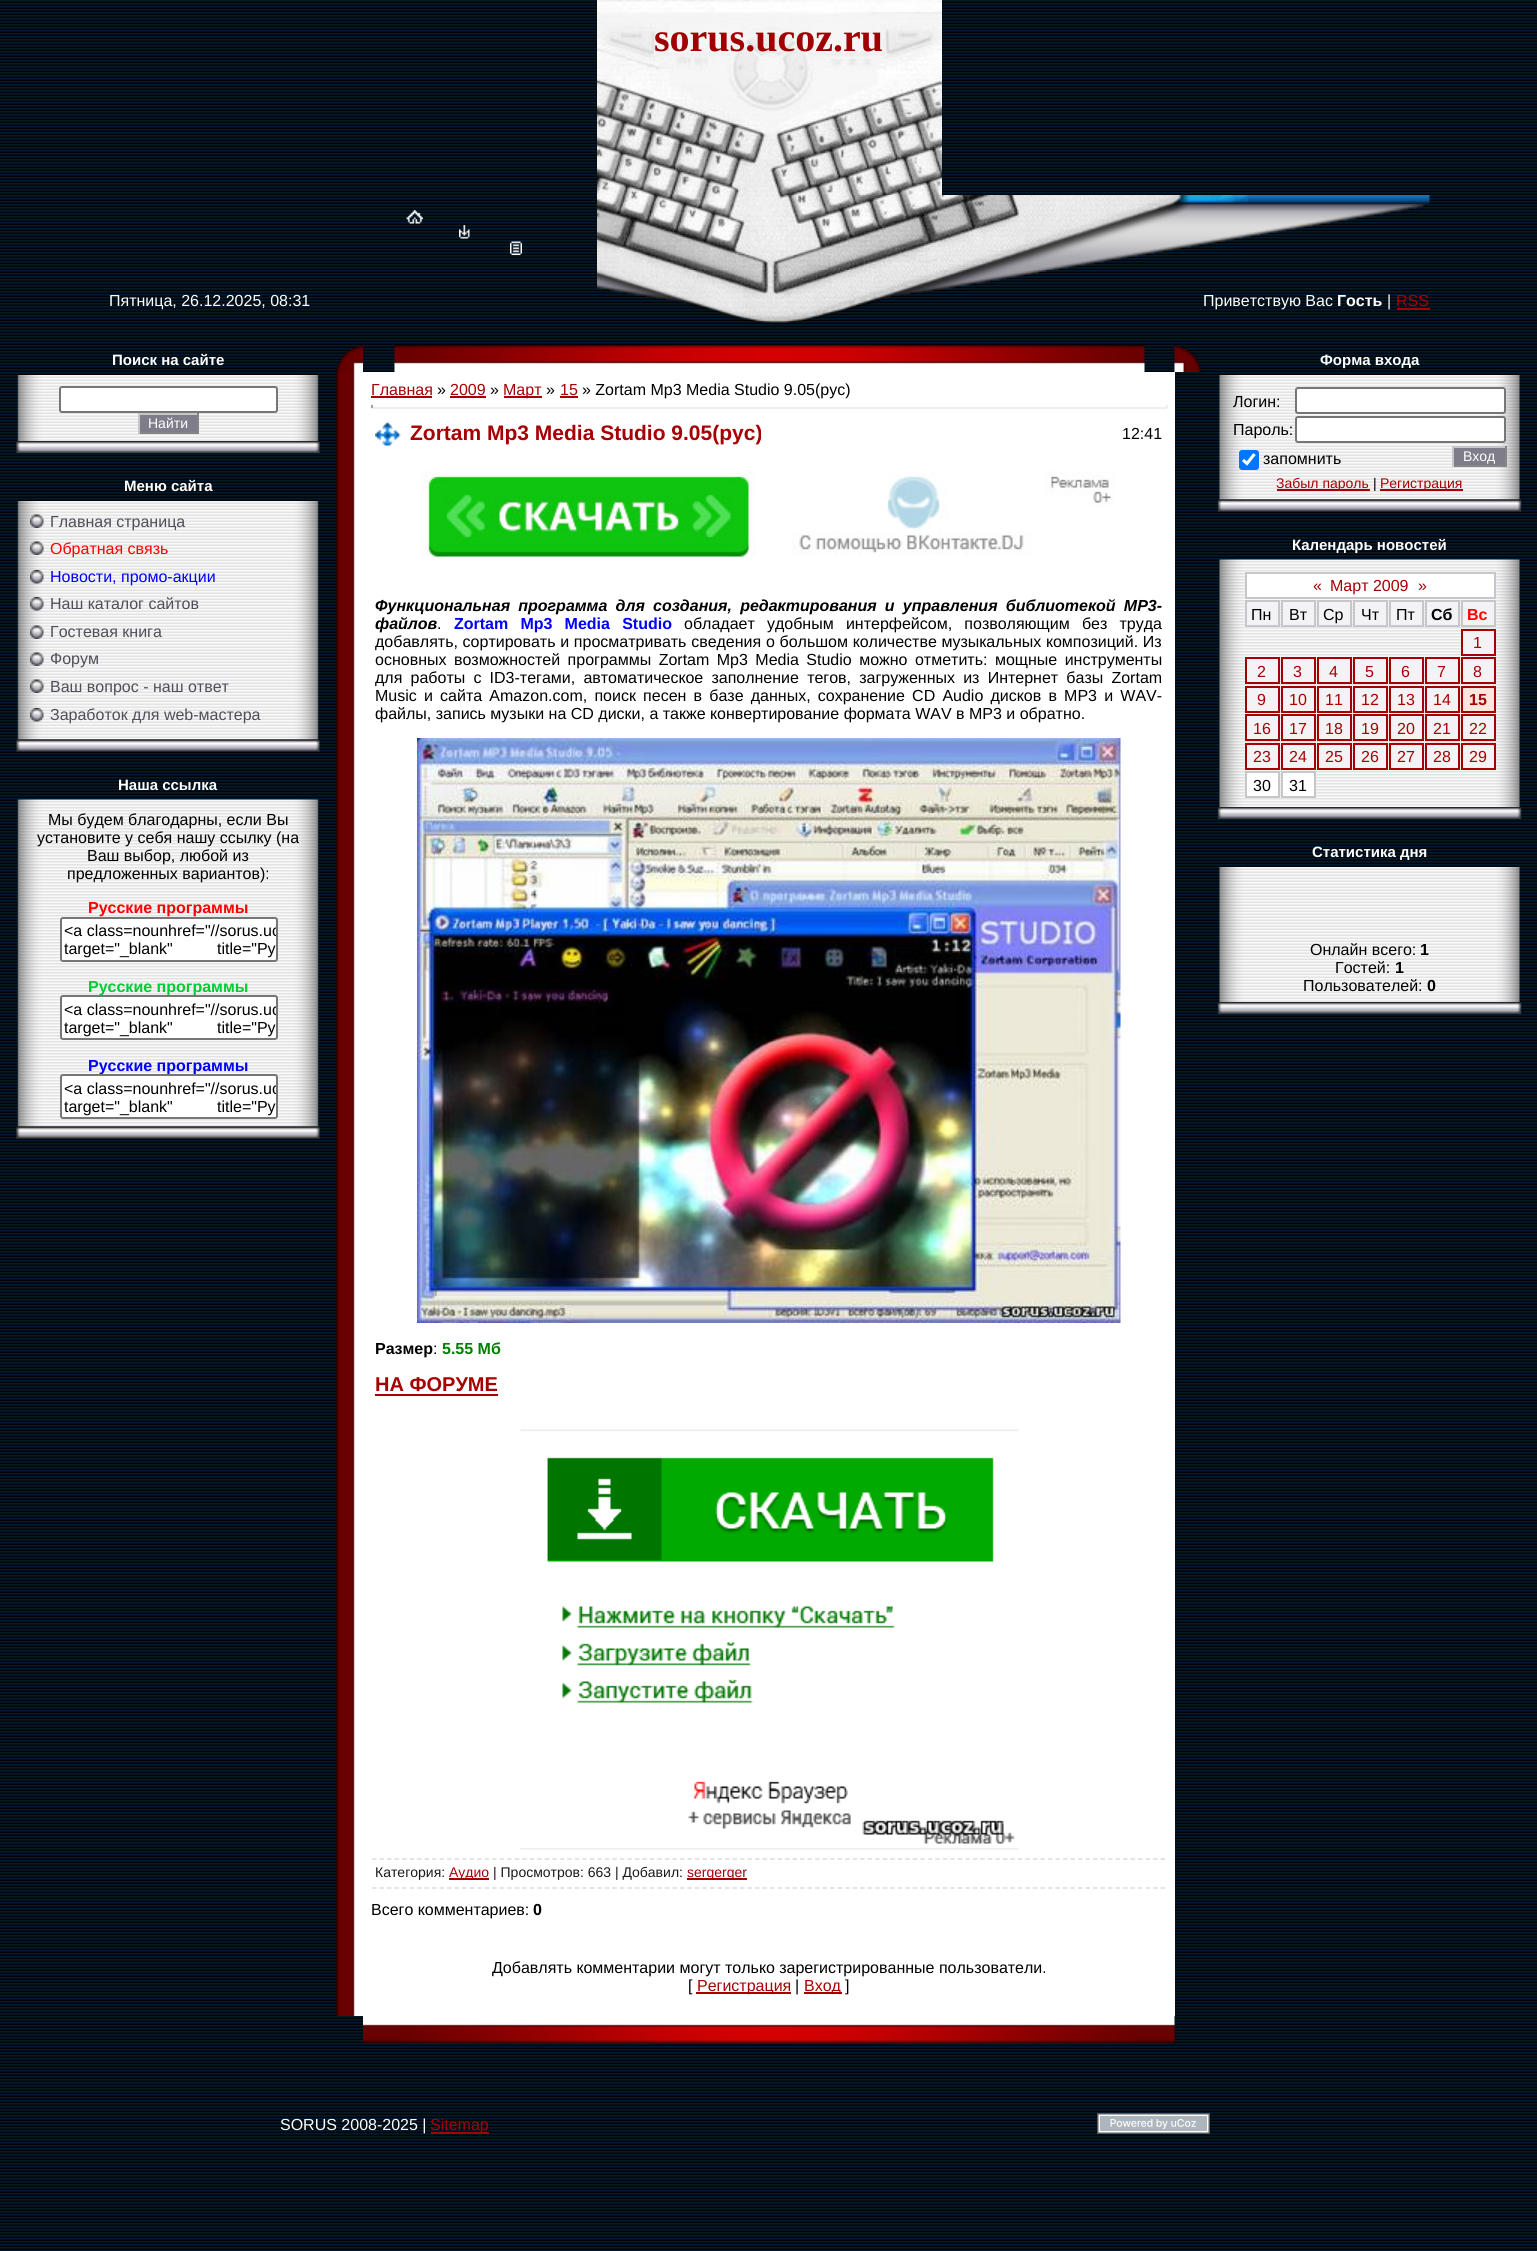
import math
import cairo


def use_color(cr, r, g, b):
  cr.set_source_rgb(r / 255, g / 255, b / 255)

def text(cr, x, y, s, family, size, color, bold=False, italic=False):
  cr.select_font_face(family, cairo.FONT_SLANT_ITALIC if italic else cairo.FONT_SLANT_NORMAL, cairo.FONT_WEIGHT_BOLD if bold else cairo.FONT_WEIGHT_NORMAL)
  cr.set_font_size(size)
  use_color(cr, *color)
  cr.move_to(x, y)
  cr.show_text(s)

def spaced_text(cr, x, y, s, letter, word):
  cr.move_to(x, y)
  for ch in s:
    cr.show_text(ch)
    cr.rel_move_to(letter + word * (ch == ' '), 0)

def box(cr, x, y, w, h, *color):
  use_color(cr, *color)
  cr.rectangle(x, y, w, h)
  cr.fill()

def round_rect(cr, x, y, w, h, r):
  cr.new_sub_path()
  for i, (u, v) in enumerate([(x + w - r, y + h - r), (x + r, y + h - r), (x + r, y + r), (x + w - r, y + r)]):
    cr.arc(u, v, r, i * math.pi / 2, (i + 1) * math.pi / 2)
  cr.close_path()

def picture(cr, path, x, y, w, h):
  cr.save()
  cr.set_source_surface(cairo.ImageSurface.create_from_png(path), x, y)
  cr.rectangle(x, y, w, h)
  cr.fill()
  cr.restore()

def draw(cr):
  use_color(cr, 255, 255, 255)
  cr.paint()
  picture(cr, "img_01.png", 0, 0, 1537, 2251)
  picture(cr, "img_02.png", 597, 0, 345, 195)
  picture(cr, "img_03.png", 406, 210, 17, 14)
  picture(cr, "img_04.png", 459, 225, 11, 14)
  picture(cr, "img_05.png", 510, 241, 12, 14)
  picture(cr, "img_06.png", 597, 195, 345, 75)
  picture(cr, "img_07.png", 942, 195, 488, 75)
  picture(cr, "img_08.png", 597, 270, 345, 55)
  picture(cr, "img_09.png", 942, 270, 105, 22)
  box(cr, 1397, 308, 33, 2, 167, 0, 3)
  picture(cr, "img_10.png", 17, 375, 302, 66)
  use_color(cr, 255, 255, 255)
  round_rect(cr, 60, 387, 217, 25, 2)
  cr.fill_preserve()
  use_color(cr, 118, 118, 118)
  cr.stroke()
  box(cr, 140, 415, 57, 17, 128, 125, 138)
  box(cr, 138, 413, 60, 2, 200, 198, 203)
  box(cr, 197, 413, 2, 21, 133, 132, 135)
  box(cr, 138, 432, 60, 2, 133, 132, 135)
  box(cr, 138, 413, 2, 21, 200, 198, 203)
  picture(cr, "img_11.png", 16, 441, 304, 12)
  picture(cr, "img_12.png", 17, 501, 302, 239)
  picture(cr, "img_13.png", 30, 514, 14, 14)
  picture(cr, "img_14.png", 30, 541, 14, 14)
  picture(cr, "img_15.png", 30, 570, 14, 14)
  picture(cr, "img_15.png", 30, 597, 14, 14)
  picture(cr, "img_13.png", 30, 625, 14, 14)
  picture(cr, "img_13.png", 30, 652, 14, 14)
  picture(cr, "img_13.png", 30, 679, 14, 14)
  picture(cr, "img_15.png", 30, 708, 14, 14)
  picture(cr, "img_16.png", 16, 739, 304, 13)
  picture(cr, "img_17.png", 17, 799, 302, 328)
  use_color(cr, 255, 255, 255)
  round_rect(cr, 61, 918, 216, 43, 2)
  cr.fill_preserve()
  use_color(cr, 118, 118, 118)
  cr.stroke()
  picture(cr, "img_16.png", 16, 1126, 304, 13)
  picture(cr, "img_18.png", 336, 345, 27, 27)
  picture(cr, "img_19.png", 394, 345, 751, 27)
  picture(cr, "img_20.png", 1174, 345, 28, 27)
  picture(cr, "img_21.png", 336, 372, 27, 1644)
  box(cr, 363, 372, 812, 1644, 255, 255, 255)
  box(cr, 371, 396, 61, 2, 167, 0, 3)
  box(cr, 450, 396, 36, 2, 167, 0, 3)
  box(cr, 504, 396, 38, 2, 167, 0, 3)
  box(cr, 560, 396, 18, 2, 167, 0, 3)
  box(cr, 1166, 405, 2, 3, 238, 238, 238)
  box(cr, 371, 407, 796, 2, 238, 238, 238)
  box(cr, 371, 405, 2, 3, 159, 159, 159)
  picture(cr, "img_22.png", 375, 421, 26, 25)
  picture(cr, "img_23.png", 420, 471, 695, 90)
  picture(cr, "img_24.png", 417, 738, 704, 585)
  box(cr, 375, 1394, 123, 2, 167, 0, 3)
  picture(cr, "img_25.png", 520, 1429, 499, 421)
  cr.new_path()
  cr.move_to(372, 1859)
  cr.line_to(1165.5, 1859)
  use_color(cr, 221, 221, 221)
  cr.set_line_width(1.5)
  cr.set_dash([4.5, 3.01])
  cr.stroke()
  cr.new_path()
  cr.move_to(372, 1888)
  cr.line_to(1165.5, 1888)
  cr.stroke()
  box(cr, 449, 1878, 40, 2, 167, 0, 3)
  box(cr, 687, 1878, 60, 2, 167, 0, 3)
  box(cr, 696, 1992, 95, 2, 167, 0, 3)
  box(cr, 804, 1992, 38, 2, 167, 0, 3)
  picture(cr, "img_26.png", 363, 2016, 812, 27)
  picture(cr, "img_27.png", 402, 2026, 735, 17)
  picture(cr, "img_28.png", 1219, 375, 301, 125)
  use_color(cr, 255, 255, 255)
  round_rect(cr, 1296, 388, 209, 25, 2)
  cr.fill_preserve()
  use_color(cr, 118, 118, 118)
  cr.set_line_width(2)
  cr.set_dash([])
  cr.stroke()
  use_color(cr, 255, 255, 255)
  round_rect(cr, 1296, 417, 209, 25, 2)
  cr.fill_preserve()
  use_color(cr, 118, 118, 118)
  cr.stroke()
  use_color(cr, 0, 117, 255)
  round_rect(cr, 1239, 450, 20, 20, 3)
  cr.fill()
  cr.new_path()
  cr.move_to(1243, 460)
  cr.line_to(1247, 463.5)
  cr.line_to(1254.5, 454)
  use_color(cr, 255, 255, 255)
  cr.set_line_width(3.1)
  cr.stroke()
  box(cr, 1454, 448, 51, 17, 128, 125, 138)
  box(cr, 1452, 446, 54, 2, 200, 198, 203)
  box(cr, 1505, 446, 2, 21, 133, 132, 135)
  box(cr, 1452, 465, 54, 2, 133, 132, 135)
  box(cr, 1452, 446, 2, 21, 200, 198, 203)
  box(cr, 1277, 489, 93, 2, 167, 0, 3)
  box(cr, 1380, 489, 83, 2, 167, 0, 3)
  picture(cr, "img_29.png", 1217, 499, 305, 13)
  picture(cr, "img_30.png", 1219, 559, 301, 248)
  use_color(cr, 255, 255, 255)
  cr.rectangle(1246, 573, 249, 25)
  cr.fill_preserve()
  use_color(cr, 200, 198, 203)
  cr.set_line_width(2)
  cr.stroke()
  use_color(cr, 243, 242, 244)
  cr.rectangle(1246, 601, 33, 25)
  cr.fill_preserve()
  use_color(cr, 200, 198, 203)
  cr.stroke()
  use_color(cr, 243, 242, 244)
  cr.rectangle(1282, 601, 33, 25)
  cr.fill_preserve()
  use_color(cr, 200, 198, 203)
  cr.stroke()
  use_color(cr, 243, 242, 244)
  cr.rectangle(1318, 601, 33, 25)
  cr.fill_preserve()
  use_color(cr, 200, 198, 203)
  cr.stroke()
  use_color(cr, 243, 242, 244)
  cr.rectangle(1354, 601, 33, 25)
  cr.fill_preserve()
  use_color(cr, 200, 198, 203)
  cr.stroke()
  use_color(cr, 243, 242, 244)
  cr.rectangle(1390, 601, 33, 25)
  cr.fill_preserve()
  use_color(cr, 200, 198, 203)
  cr.stroke()
  use_color(cr, 243, 242, 244)
  cr.rectangle(1426, 601, 33, 25)
  cr.fill_preserve()
  use_color(cr, 200, 198, 203)
  cr.stroke()
  use_color(cr, 243, 242, 244)
  cr.rectangle(1462, 601, 33, 25)
  cr.fill_preserve()
  use_color(cr, 200, 198, 203)
  cr.stroke()
  use_color(cr, 243, 242, 244)
  cr.rectangle(1462, 630, 33, 25)
  cr.fill_preserve()
  use_color(cr, 167, 0, 3)
  cr.stroke()
  use_color(cr, 243, 242, 244)
  cr.rectangle(1246, 658, 33, 25)
  cr.fill_preserve()
  use_color(cr, 167, 0, 3)
  cr.stroke()
  use_color(cr, 243, 242, 244)
  cr.rectangle(1282, 658, 33, 25)
  cr.fill_preserve()
  use_color(cr, 167, 0, 3)
  cr.stroke()
  use_color(cr, 243, 242, 244)
  cr.rectangle(1318, 658, 33, 25)
  cr.fill_preserve()
  use_color(cr, 167, 0, 3)
  cr.stroke()
  use_color(cr, 243, 242, 244)
  cr.rectangle(1354, 658, 33, 25)
  cr.fill_preserve()
  use_color(cr, 167, 0, 3)
  cr.stroke()
  use_color(cr, 243, 242, 244)
  cr.rectangle(1390, 658, 33, 25)
  cr.fill_preserve()
  use_color(cr, 167, 0, 3)
  cr.stroke()
  use_color(cr, 243, 242, 244)
  cr.rectangle(1426, 658, 33, 25)
  cr.fill_preserve()
  use_color(cr, 167, 0, 3)
  cr.stroke()
  use_color(cr, 243, 242, 244)
  cr.rectangle(1462, 658, 33, 25)
  cr.fill_preserve()
  use_color(cr, 167, 0, 3)
  cr.stroke()
  use_color(cr, 243, 242, 244)
  cr.rectangle(1246, 687, 33, 25)
  cr.fill_preserve()
  use_color(cr, 167, 0, 3)
  cr.stroke()
  use_color(cr, 243, 242, 244)
  cr.rectangle(1282, 687, 33, 25)
  cr.fill_preserve()
  use_color(cr, 167, 0, 3)
  cr.stroke()
  use_color(cr, 243, 242, 244)
  cr.rectangle(1318, 687, 33, 25)
  cr.fill_preserve()
  use_color(cr, 167, 0, 3)
  cr.stroke()
  use_color(cr, 243, 242, 244)
  cr.rectangle(1354, 687, 33, 25)
  cr.fill_preserve()
  use_color(cr, 167, 0, 3)
  cr.stroke()
  use_color(cr, 243, 242, 244)
  cr.rectangle(1390, 687, 33, 25)
  cr.fill_preserve()
  use_color(cr, 167, 0, 3)
  cr.stroke()
  use_color(cr, 243, 242, 244)
  cr.rectangle(1426, 687, 33, 25)
  cr.fill_preserve()
  use_color(cr, 167, 0, 3)
  cr.stroke()
  use_color(cr, 248, 230, 223)
  cr.rectangle(1462, 687, 33, 25)
  cr.fill_preserve()
  use_color(cr, 167, 0, 3)
  cr.stroke()
  use_color(cr, 243, 242, 244)
  cr.rectangle(1246, 715, 33, 25)
  cr.fill_preserve()
  use_color(cr, 167, 0, 3)
  cr.stroke()
  use_color(cr, 243, 242, 244)
  cr.rectangle(1282, 715, 33, 25)
  cr.fill_preserve()
  use_color(cr, 167, 0, 3)
  cr.stroke()
  use_color(cr, 243, 242, 244)
  cr.rectangle(1318, 715, 33, 25)
  cr.fill_preserve()
  use_color(cr, 167, 0, 3)
  cr.stroke()
  use_color(cr, 243, 242, 244)
  cr.rectangle(1354, 715, 33, 25)
  cr.fill_preserve()
  use_color(cr, 167, 0, 3)
  cr.stroke()
  use_color(cr, 243, 242, 244)
  cr.rectangle(1390, 715, 33, 25)
  cr.fill_preserve()
  use_color(cr, 167, 0, 3)
  cr.stroke()
  use_color(cr, 243, 242, 244)
  cr.rectangle(1426, 715, 33, 25)
  cr.fill_preserve()
  use_color(cr, 167, 0, 3)
  cr.stroke()
  use_color(cr, 243, 242, 244)
  cr.rectangle(1462, 715, 33, 25)
  cr.fill_preserve()
  use_color(cr, 167, 0, 3)
  cr.stroke()
  use_color(cr, 243, 242, 244)
  cr.rectangle(1246, 744, 33, 25)
  cr.fill_preserve()
  use_color(cr, 167, 0, 3)
  cr.stroke()
  use_color(cr, 243, 242, 244)
  cr.rectangle(1282, 744, 33, 25)
  cr.fill_preserve()
  use_color(cr, 167, 0, 3)
  cr.stroke()
  use_color(cr, 243, 242, 244)
  cr.rectangle(1318, 744, 33, 25)
  cr.fill_preserve()
  use_color(cr, 167, 0, 3)
  cr.stroke()
  use_color(cr, 243, 242, 244)
  cr.rectangle(1354, 744, 33, 25)
  cr.fill_preserve()
  use_color(cr, 167, 0, 3)
  cr.stroke()
  use_color(cr, 243, 242, 244)
  cr.rectangle(1390, 744, 33, 25)
  cr.fill_preserve()
  use_color(cr, 167, 0, 3)
  cr.stroke()
  use_color(cr, 243, 242, 244)
  cr.rectangle(1426, 744, 33, 25)
  cr.fill_preserve()
  use_color(cr, 167, 0, 3)
  cr.stroke()
  use_color(cr, 243, 242, 244)
  cr.rectangle(1462, 744, 33, 25)
  cr.fill_preserve()
  use_color(cr, 167, 0, 3)
  cr.stroke()
  use_color(cr, 255, 255, 255)
  cr.rectangle(1246, 772, 33, 25)
  cr.fill_preserve()
  use_color(cr, 200, 198, 203)
  cr.stroke()
  use_color(cr, 255, 255, 255)
  cr.rectangle(1282, 772, 33, 25)
  cr.fill_preserve()
  use_color(cr, 200, 198, 203)
  cr.stroke()
  picture(cr, "img_31.png", 1217, 807, 305, 12)
  picture(cr, "img_32.png", 1219, 867, 301, 135)
  picture(cr, "img_31.png", 1217, 1002, 305, 12)
  box(cr, 431, 2132, 58, 2, 167, 0, 3)
  picture(cr, "img_33.png", 1097, 2113, 113, 21)
  text(cr, 654, 51, "sorus.ucoz.ru", "Liberation Serif", 40, (161, 0, 3), bold=True)
  text(cr, 109, 306, "Пятница, 26.12.2025, 08:31", "Liberation Sans", 16, (255, 255, 255))
  text(cr, 1203, 306, "Приветствую Вас", "Liberation Sans", 16, (255, 255, 255))
  text(cr, 1337, 306, "Гость", "Liberation Sans", 16, (255, 255, 255), bold=True)
  text(cr, 1387, 306, "|", "Liberation Sans", 16, (255, 255, 255))
  text(cr, 1396, 306, "RSS", "Liberation Sans", 16, (167, 0, 3))
  text(cr, 112, 365, "Поиск на сайте", "Liberation Sans", 15, (255, 255, 255), bold=True)
  text(cr, 148, 428, "Найти", "Liberation Sans", 14, (255, 255, 255))
  text(cr, 124, 491, "Меню сайта", "Liberation Sans", 15, (255, 255, 255), bold=True)
  text(cr, 50, 527, "Главная страница", "Liberation Sans", 16, (80, 78, 89))
  text(cr, 50, 554, "Обратная связь", "Liberation Sans", 16, (255, 0, 0))
  text(cr, 50, 582, "Новости, промо-акции", "Liberation Sans", 16, (0, 0, 255))
  text(cr, 50, 609, "Наш каталог сайтов", "Liberation Sans", 16, (80, 78, 89))
  text(cr, 50, 637, "Гостевая книга", "Liberation Sans", 16, (80, 78, 89))
  text(cr, 50, 664, "Форум", "Liberation Sans", 16, (80, 78, 89))
  text(cr, 50, 692, "Ваш вопрос - наш ответ", "Liberation Sans", 16, (80, 78, 89))
  text(cr, 50, 720, "Заработок для web-мастера", "Liberation Sans", 16, (80, 78, 89))
  text(cr, 118, 790, "Наша ссылка", "Liberation Sans", 15, (255, 255, 255), bold=True)
  text(cr, 48, 825, "Мы будем благодарны, если Вы", "Liberation Sans", 16, (0, 0, 0))
  text(cr, 37, 843, "установите у себя нашу ссылку (на", "Liberation Sans", 16, (0, 0, 0))
  text(cr, 87, 861, "Ваш выбор, любой из", "Liberation Sans", 16, (0, 0, 0))
  text(cr, 67, 879, "предложенных вариантов):", "Liberation Sans", 16, (0, 0, 0))
  text(cr, 88, 913, "Русские программы", "Liberation Sans", 16, (255, 0, 0), bold=True)
  text(cr, 64, 936, "<a class=noun", "Liberation Sans", 16, (0, 0, 0))
  cr.save()
  cr.rectangle(62, 918, 214, 42)
  cr.clip()
  text(cr, 168, 936, "href=\"//sorus.uc", "Liberation Sans", 16, (0, 0, 0))
  cr.restore()
  text(cr, 64, 954, "target=\"_blank\"", "Liberation Sans", 16, (0, 0, 0))
  text(cr, 217, 954, "title=\"Ру", "Liberation Sans", 16, (0, 0, 0))
  text(cr, 88, 992, "Русские программы", "Liberation Sans", 16, (0, 204, 51), bold=True)
  use_color(cr, 255, 255, 255)
  round_rect(cr, 61, 996, 216, 43, 2)
  cr.fill_preserve()
  use_color(cr, 118, 118, 118)
  cr.stroke()
  text(cr, 64, 1015, "<a class=noun", "Liberation Sans", 16, (0, 0, 0))
  cr.save()
  cr.rectangle(62, 996, 214, 42)
  cr.clip()
  text(cr, 168, 1015, "href=\"//sorus.uc", "Liberation Sans", 16, (0, 0, 0))
  cr.restore()
  text(cr, 64, 1033, "target=\"_blank\"", "Liberation Sans", 16, (0, 0, 0))
  text(cr, 217, 1033, "title=\"Ру", "Liberation Sans", 16, (0, 0, 0))
  text(cr, 88, 1071, "Русские программы", "Liberation Sans", 16, (0, 0, 255), bold=True)
  use_color(cr, 255, 255, 255)
  round_rect(cr, 61, 1075, 216, 43, 2)
  cr.fill_preserve()
  use_color(cr, 118, 118, 118)
  cr.stroke()
  text(cr, 64, 1094, "<a class=noun", "Liberation Sans", 16, (0, 0, 0))
  cr.save()
  cr.rectangle(62, 1076, 214, 42)
  cr.clip()
  text(cr, 168, 1094, "href=\"//sorus.uc", "Liberation Sans", 16, (0, 0, 0))
  cr.restore()
  text(cr, 64, 1112, "target=\"_blank\"", "Liberation Sans", 16, (0, 0, 0))
  text(cr, 217, 1112, "title=\"Ру", "Liberation Sans", 16, (0, 0, 0))
  text(cr, 371, 395, "Главная", "Liberation Sans", 16, (167, 0, 3))
  text(cr, 437, 395, "»", "Liberation Sans", 16, (0, 0, 0))
  text(cr, 450, 395, "2009", "Liberation Sans", 16, (167, 0, 3))
  text(cr, 490, 395, "»", "Liberation Sans", 16, (0, 0, 0))
  text(cr, 503, 395, "Март", "Liberation Sans", 16, (167, 0, 3))
  text(cr, 546, 395, "»", "Liberation Sans", 16, (0, 0, 0))
  text(cr, 560, 395, "15", "Liberation Sans", 16, (167, 0, 3))
  text(cr, 582, 395, "» Zortam Mp3 Media Studio 9.05(рус)", "Liberation Sans", 16, (0, 0, 0))
  text(cr, 410, 440, "Zortam Mp3 Media Studio 9.05(рус)", "Liberation Sans", 21, (167, 0, 3), bold=True)
  text(cr, 1122, 439, "12:41", "Liberation Sans", 16, (0, 0, 0))
  cr.select_font_face("Liberation Sans", cairo.FONT_SLANT_ITALIC, cairo.FONT_WEIGHT_BOLD)
  spaced_text(cr, 375, 611, "Функциональная программа для создания, редактирования и управления библиотекой MP3-", 0, 3.75)
  text(cr, 375, 629, "файлов", "Liberation Sans", 16, (0, 0, 0), bold=True, italic=True)
  text(cr, 437, 629, ".", "Liberation Sans", 16, (0, 0, 0))
  cr.select_font_face("Liberation Sans", cairo.FONT_SLANT_NORMAL, cairo.FONT_WEIGHT_BOLD)
  use_color(cr, 0, 0, 255)
  spaced_text(cr, 454, 629, "Zortam Mp3 Media Studio", 0, 7.75)
  cr.select_font_face("Liberation Sans")
  use_color(cr, 0, 0, 0)
  spaced_text(cr, 684, 629, "обладает удобным интерфейсом, позволяющим без труда", 0, 7.75)
  spaced_text(cr, 375, 647, "добавлять, сортировать и просматривать сведения о большом количестве музыкальных композиций. Из", 0, 0.25)
  spaced_text(cr, 375, 665, "основных возможностей программы Zortam Mp3 Media Studio можно отметить: мощные инструменты", 0, 3)
  spaced_text(cr, 375, 683, "для работы с ID3-тегами, автоматическое заполнение тегов, загруженных из Интернет базы Zortam", 0, 3.75)
  spaced_text(cr, 375, 701, "Music и сайта Amazon.com, поиск песен в базе данных, сохранение CD Audio дисков в MP3 и WAV-", 0, 2.75)
  text(cr, 375, 719, "файлы, запись музыки на CD диски, а также конвертирование формата WAV в MP3 и обратно.", "Liberation Sans", 16, (0, 0, 0))
  text(cr, 375, 1354, "Размер", "Liberation Sans", 16, (0, 0, 0), bold=True)
  text(cr, 433, 1354, ":", "Liberation Sans", 16, (0, 0, 0))
  text(cr, 442, 1354, "5.55 Мб", "Liberation Sans", 16, (0, 128, 0), bold=True)
  text(cr, 375, 1391, "НА ФОРУМЕ", "Liberation Sans", 20, (167, 0, 3), bold=True)
  text(cr, 375, 1877, "Категория:", "Liberation Sans", 14, (26, 26, 26))
  text(cr, 449, 1877, "Аудио", "Liberation Sans", 14, (167, 0, 3))
  text(cr, 493, 1877, "| Просмотров: 663 | Добавил:", "Liberation Sans", 14, (26, 26, 26))
  text(cr, 687, 1877, "sergerger", "Liberation Sans", 14, (167, 0, 3))
  text(cr, 371, 1915, "Всего комментариев:", "Liberation Sans", 16, (0, 0, 0))
  text(cr, 533, 1915, "0", "Liberation Sans", 16, (0, 0, 0), bold=True)
  text(cr, 492, 1973, "Добавлять комментарии могут только зарегистрированные пользователи.", "Liberation Sans", 16, (0, 0, 0))
  text(cr, 688, 1991, "[", "Liberation Sans", 16, (0, 0, 0))
  text(cr, 697, 1991, "Регистрация", "Liberation Sans", 16, (167, 0, 3))
  text(cr, 795, 1991, "|", "Liberation Sans", 16, (0, 0, 0))
  text(cr, 804, 1991, "Вход", "Liberation Sans", 16, (167, 0, 3))
  text(cr, 845, 1991, "]", "Liberation Sans", 16, (0, 0, 0))
  text(cr, 1320, 365, "Форма входа", "Liberation Sans", 15, (255, 255, 255), bold=True)
  text(cr, 1233, 407, "Логин:", "Liberation Sans", 16, (0, 0, 0))
  text(cr, 1233, 435, "Пароль:", "Liberation Sans", 16, (0, 0, 0))
  text(cr, 1263, 464, "запомнить", "Liberation Sans", 16, (0, 0, 0))
  text(cr, 1463, 461, "Вход", "Liberation Sans", 14, (255, 255, 255))
  text(cr, 1276, 488, "Забыл пароль", "Liberation Sans", 14, (167, 0, 3))
  text(cr, 1373, 488, "|", "Liberation Sans", 14, (0, 0, 0))
  text(cr, 1380, 488, "Регистрация", "Liberation Sans", 14, (167, 0, 3))
  text(cr, 1292, 550, "Календарь новостей", "Liberation Sans", 15, (255, 255, 255), bold=True)
  text(cr, 1313, 591, "«", "Liberation Sans", 16, (167, 0, 3))
  text(cr, 1330, 591, "Март 2009", "Liberation Sans", 16, (167, 0, 3))
  text(cr, 1418, 591, "»", "Liberation Sans", 16, (167, 0, 3))
  text(cr, 1251, 620, "Пн", "Liberation Sans", 16, (0, 0, 0))
  text(cr, 1289, 620, "Вт", "Liberation Sans", 16, (0, 0, 0))
  text(cr, 1323, 620, "Ср", "Liberation Sans", 16, (0, 0, 0))
  text(cr, 1361, 620, "Чт", "Liberation Sans", 16, (0, 0, 0))
  text(cr, 1396, 620, "Пт", "Liberation Sans", 16, (0, 0, 0))
  text(cr, 1431, 620, "Сб", "Liberation Sans", 16, (0, 0, 0), bold=True)
  text(cr, 1467, 620, "Вс", "Liberation Sans", 16, (255, 0, 0), bold=True)
  text(cr, 1473, 648, "1", "Liberation Sans", 16, (167, 0, 3))
  text(cr, 1257, 677, "2", "Liberation Sans", 16, (167, 0, 3))
  text(cr, 1293, 677, "3", "Liberation Sans", 16, (167, 0, 3))
  text(cr, 1329, 677, "4", "Liberation Sans", 16, (167, 0, 3))
  text(cr, 1365, 677, "5", "Liberation Sans", 16, (167, 0, 3))
  text(cr, 1401, 677, "6", "Liberation Sans", 16, (167, 0, 3))
  text(cr, 1437, 677, "7", "Liberation Sans", 16, (167, 0, 3))
  text(cr, 1473, 677, "8", "Liberation Sans", 16, (167, 0, 3))
  text(cr, 1257, 705, "9", "Liberation Sans", 16, (167, 0, 3))
  text(cr, 1289, 705, "10", "Liberation Sans", 16, (167, 0, 3))
  text(cr, 1325, 705, "11", "Liberation Sans", 16, (167, 0, 3))
  text(cr, 1361, 705, "12", "Liberation Sans", 16, (167, 0, 3))
  text(cr, 1397, 705, "13", "Liberation Sans", 16, (167, 0, 3))
  text(cr, 1433, 705, "14", "Liberation Sans", 16, (167, 0, 3))
  text(cr, 1469, 705, "15", "Liberation Sans", 16, (167, 0, 3), bold=True)
  text(cr, 1253, 734, "16", "Liberation Sans", 16, (167, 0, 3))
  text(cr, 1289, 734, "17", "Liberation Sans", 16, (167, 0, 3))
  text(cr, 1325, 734, "18", "Liberation Sans", 16, (167, 0, 3))
  text(cr, 1361, 734, "19", "Liberation Sans", 16, (167, 0, 3))
  text(cr, 1397, 734, "20", "Liberation Sans", 16, (167, 0, 3))
  text(cr, 1433, 734, "21", "Liberation Sans", 16, (167, 0, 3))
  text(cr, 1469, 734, "22", "Liberation Sans", 16, (167, 0, 3))
  text(cr, 1253, 762, "23", "Liberation Sans", 16, (167, 0, 3))
  text(cr, 1289, 762, "24", "Liberation Sans", 16, (167, 0, 3))
  text(cr, 1325, 762, "25", "Liberation Sans", 16, (167, 0, 3))
  text(cr, 1361, 762, "26", "Liberation Sans", 16, (167, 0, 3))
  text(cr, 1397, 762, "27", "Liberation Sans", 16, (167, 0, 3))
  text(cr, 1433, 762, "28", "Liberation Sans", 16, (167, 0, 3))
  text(cr, 1469, 762, "29", "Liberation Sans", 16, (167, 0, 3))
  text(cr, 1253, 791, "30", "Liberation Sans", 16, (0, 0, 0))
  text(cr, 1289, 791, "31", "Liberation Sans", 16, (0, 0, 0))
  text(cr, 1312, 857, "Статистика дня", "Liberation Sans", 15, (255, 255, 255), bold=True)
  text(cr, 1310, 955, "Онлайн всего:", "Liberation Sans", 16, (0, 0, 0))
  text(cr, 1420, 955, "1", "Liberation Sans", 16, (0, 0, 0), bold=True)
  text(cr, 1335, 973, "Гостей:", "Liberation Sans", 16, (0, 0, 0))
  text(cr, 1395, 973, "1", "Liberation Sans", 16, (0, 0, 0), bold=True)
  text(cr, 1303, 991, "Пользователей:", "Liberation Sans", 16, (0, 0, 0))
  text(cr, 1427, 991, "0", "Liberation Sans", 16, (0, 0, 0), bold=True)
  text(cr, 280, 2130, "SORUS 2008-2025 |", "Liberation Sans", 16, (255, 255, 255))
  text(cr, 430, 2130, "Sitemap", "Liberation Sans", 16, (167, 0, 3))


surface = cairo.ImageSurface(cairo.FORMAT_RGB24, 1537, 2251)
cr = cairo.Context(surface)
options = cairo.FontOptions()
options.set_hint_metrics(cairo.HINT_METRICS_OFF)
options.set_hint_style(cairo.HINT_STYLE_NONE)
cr.set_font_options(options)
cr.set_miter_limit(4)
draw(cr)
surface.write_to_png("out.png")
